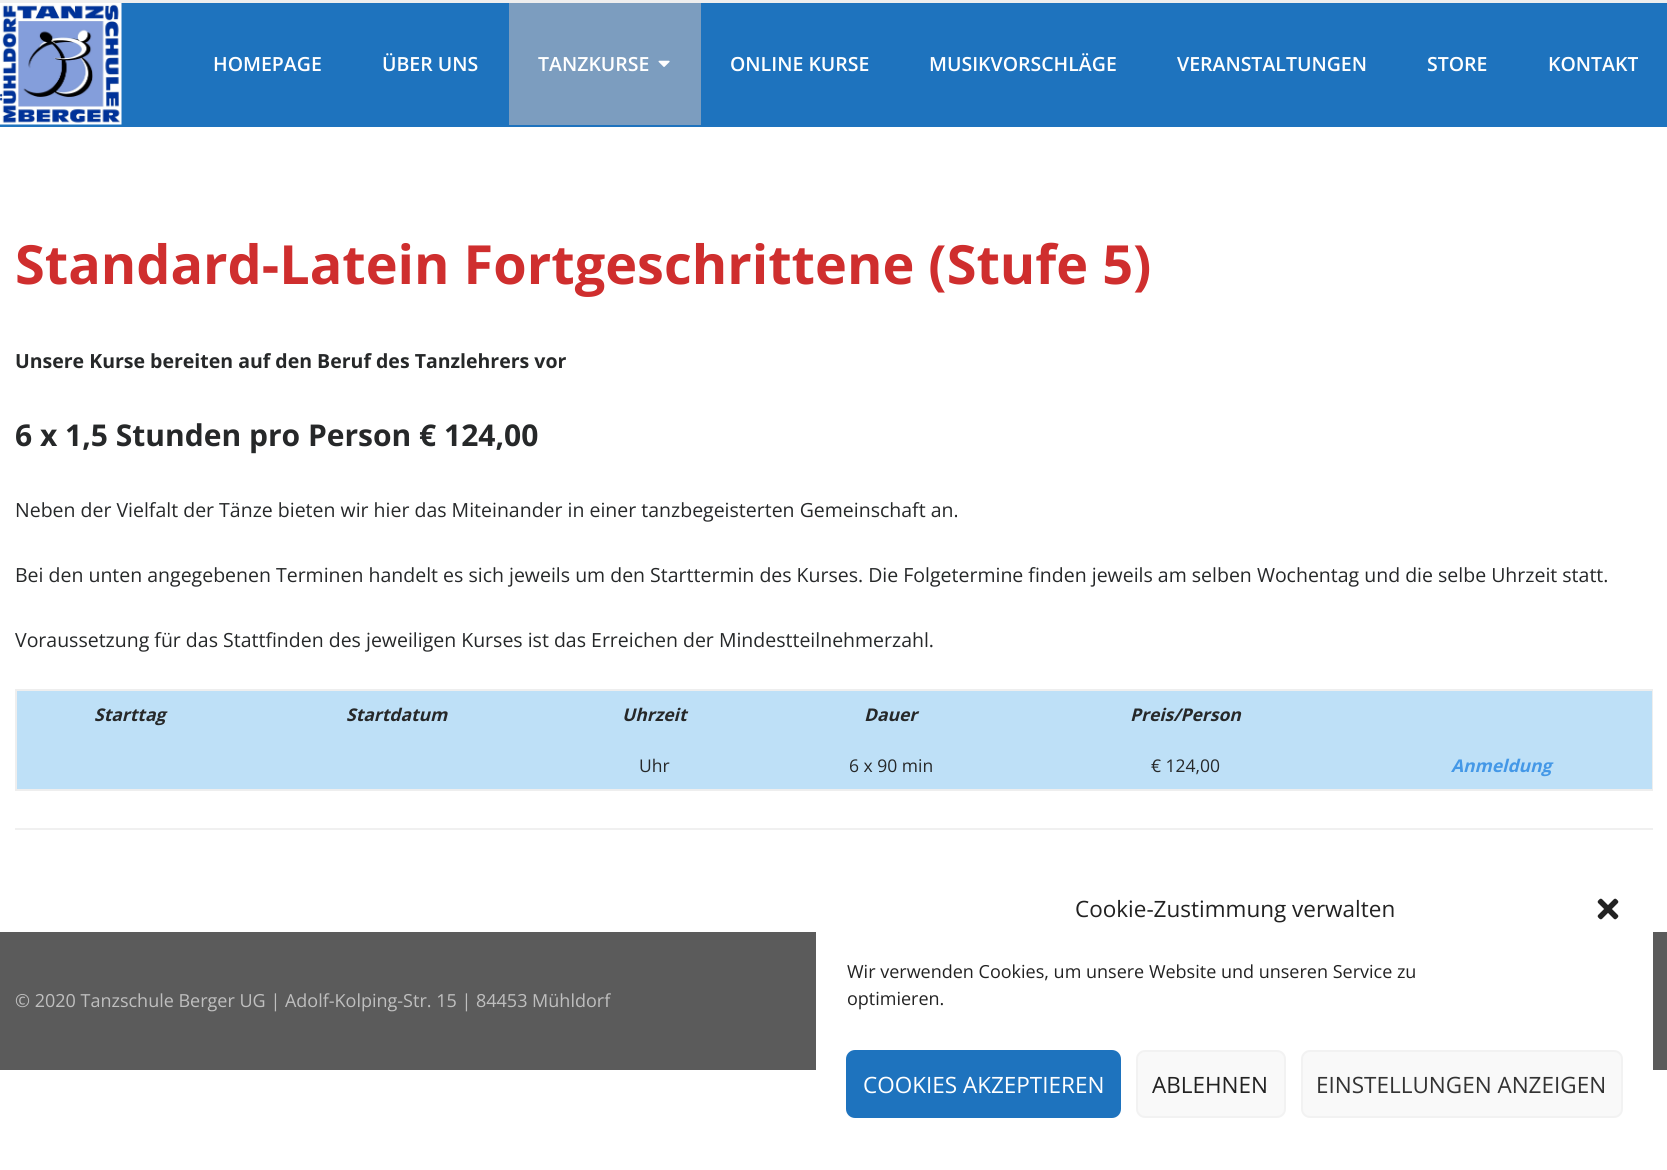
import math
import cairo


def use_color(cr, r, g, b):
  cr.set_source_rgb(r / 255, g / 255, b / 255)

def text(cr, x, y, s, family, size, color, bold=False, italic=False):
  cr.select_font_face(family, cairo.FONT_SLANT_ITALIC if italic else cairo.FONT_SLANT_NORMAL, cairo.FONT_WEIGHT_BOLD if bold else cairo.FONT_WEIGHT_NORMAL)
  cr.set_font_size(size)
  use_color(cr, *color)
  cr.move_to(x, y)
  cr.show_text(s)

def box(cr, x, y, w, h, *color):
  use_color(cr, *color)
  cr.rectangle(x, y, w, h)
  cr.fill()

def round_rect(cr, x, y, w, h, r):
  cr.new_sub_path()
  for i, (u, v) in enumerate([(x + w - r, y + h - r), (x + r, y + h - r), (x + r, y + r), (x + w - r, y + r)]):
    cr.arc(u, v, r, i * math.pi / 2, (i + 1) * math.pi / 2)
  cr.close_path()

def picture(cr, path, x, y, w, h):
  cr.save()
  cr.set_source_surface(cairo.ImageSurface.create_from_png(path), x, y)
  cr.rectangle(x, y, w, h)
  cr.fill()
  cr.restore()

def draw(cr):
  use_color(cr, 255, 255, 255)
  cr.paint()
  box(cr, 0, 0, 1667, 3, 238, 238, 238)
  box(cr, 0, 3, 1667, 124, 30, 115, 190)
  picture(cr, "img_01.png", 0, 3, 122, 122)
  box(cr, 509, 3, 192, 122, 124, 157, 191)
  picture(cr, "img_02.png", 658, 60, 12, 7)
  box(cr, 15, 828, 1638, 2, 240, 240, 240)
  box(cr, 15, 689, 1638, 2, 238, 238, 238)
  box(cr, 1652, 689, 1, 102, 238, 238, 238)
  box(cr, 15, 789, 1638, 2, 238, 238, 238)
  box(cr, 15, 689, 2, 102, 238, 238, 238)
  box(cr, 17, 691, 1635, 98, 190, 224, 247)
  box(cr, 0, 932, 1667, 138, 91, 91, 91)
  use_color(cr, 255, 255, 255)
  round_rect(cr, 816, 866, 837, 289, 18)
  cr.fill()
  picture(cr, "img_03.png", 1597, 898, 22, 22)
  use_color(cr, 30, 115, 190)
  round_rect(cr, 847, 1051, 273, 66, 8)
  cr.fill_preserve()
  cr.stroke()
  use_color(cr, 249, 249, 249)
  round_rect(cr, 1137, 1051, 148, 66, 8)
  cr.fill_preserve()
  use_color(cr, 242, 242, 242)
  cr.stroke()
  use_color(cr, 249, 249, 249)
  round_rect(cr, 1302, 1051, 320, 66, 8)
  cr.fill_preserve()
  use_color(cr, 242, 242, 242)
  cr.stroke()
  text(cr, 213, 71, "HOMEPAGE", "Open Sans SemiBold", 19.5, (255, 255, 255))
  text(cr, 382, 71, "ÜBER UNS", "Open Sans SemiBold", 19.5, (255, 255, 255))
  text(cr, 538, 71, "TANZKURSE", "Open Sans SemiBold", 19.5, (255, 255, 255))
  text(cr, 730, 71, "ONLINE KURSE", "Open Sans SemiBold", 19.5, (255, 255, 255))
  text(cr, 929, 71, "MUSIKVORSCHLÄGE", "Open Sans SemiBold", 19.5, (255, 255, 255))
  text(cr, 1177, 71, "VERANSTALTUNGEN", "Open Sans SemiBold", 19.5, (255, 255, 255))
  text(cr, 1427, 71, "STORE", "Open Sans SemiBold", 19.5, (255, 255, 255))
  text(cr, 1548, 71, "KONTAKT", "Open Sans SemiBold", 19.5, (255, 255, 255))
  text(cr, 15, 284, "Standard-Latein Fortgeschrittene (Stufe 5)", "Open Sans", 54, (207, 46, 46), bold=True)
  text(cr, 15, 368, "Unsere Kurse bereiten auf den Beruf des Tanzlehrers vor", "Open Sans", 19.5, (38, 40, 41), bold=True)
  text(cr, 15, 446, "6 x 1,5 Stunden pro Person € 124,00", "Open Sans", 30, (38, 40, 41), bold=True)
  text(cr, 15, 517, "Neben der Vielfalt der Tänze bieten wir hier das Miteinander in einer tanzbegeisterten Gemeinschaft an.", "Open Sans", 19.5, (38, 40, 41))
  text(cr, 15, 582, "Bei den unten angegebenen Terminen handelt es sich jeweils um den Starttermin des Kurses. Die Folgetermine finden jeweils am selben Wochentag und die selbe Uhrzeit statt.", "Open Sans", 19.5, (38, 40, 41))
  text(cr, 15, 647, "Voraussetzung für das Stattfinden des jeweiligen Kurses ist das Erreichen der Mindestteilnehmerzahl.", "Open Sans", 19.5, (38, 40, 41))
  text(cr, 94, 721, "Starttag", "Open Sans", 17.5, (38, 40, 41), bold=True, italic=True)
  text(cr, 346, 721, "Startdatum", "Open Sans", 17.5, (38, 40, 41), bold=True, italic=True)
  text(cr, 622, 721, "Uhrzeit", "Open Sans", 17.5, (38, 40, 41), bold=True, italic=True)
  text(cr, 864, 721, "Dauer", "Open Sans", 17.5, (38, 40, 41), bold=True, italic=True)
  text(cr, 1130, 721, "Preis/Person", "Open Sans", 17.5, (38, 40, 41), bold=True, italic=True)
  text(cr, 639, 772, "Uhr", "Open Sans", 17.5, (38, 40, 41))
  text(cr, 849, 772, "6 x 90 min", "Open Sans", 17.5, (38, 40, 41))
  text(cr, 1151, 772, "€ 124,00", "Open Sans", 17.5, (38, 40, 41))
  text(cr, 1451, 772, "Anmeldung", "Open Sans", 17.5, (68, 152, 231), bold=True, italic=True)
  text(cr, 15, 1007, "© 2020 Tanzschule Berger UG | Adolf-Kolping-Str. 15 | 84453 Mühldorf", "Open Sans", 18, (191, 191, 191))
  text(cr, 1075, 917, "Cookie-Zustimmung verwalten", "Open Sans", 22.5, (34, 34, 34))
  text(cr, 847, 978, "Wir verwenden Cookies, um unsere Website und unseren Service zu", "Open Sans", 18, (34, 34, 34))
  text(cr, 847, 1005, "optimieren.", "Open Sans", 18, (34, 34, 34))
  text(cr, 863, 1093, "COOKIES AKZEPTIEREN", "Open Sans", 22.5, (255, 255, 255))
  text(cr, 1152, 1093, "ABLEHNEN", "Open Sans", 22.5, (34, 34, 34))
  text(cr, 1316, 1093, "EINSTELLUNGEN ANZEIGEN", "Open Sans", 22.5, (51, 51, 51))


surface = cairo.ImageSurface(cairo.FORMAT_RGB24, 1667, 1170)
cr = cairo.Context(surface)
options = cairo.FontOptions()
options.set_hint_metrics(cairo.HINT_METRICS_OFF)
options.set_hint_style(cairo.HINT_STYLE_NONE)
cr.set_font_options(options)
cr.set_miter_limit(4)
draw(cr)
surface.write_to_png("out.png")
